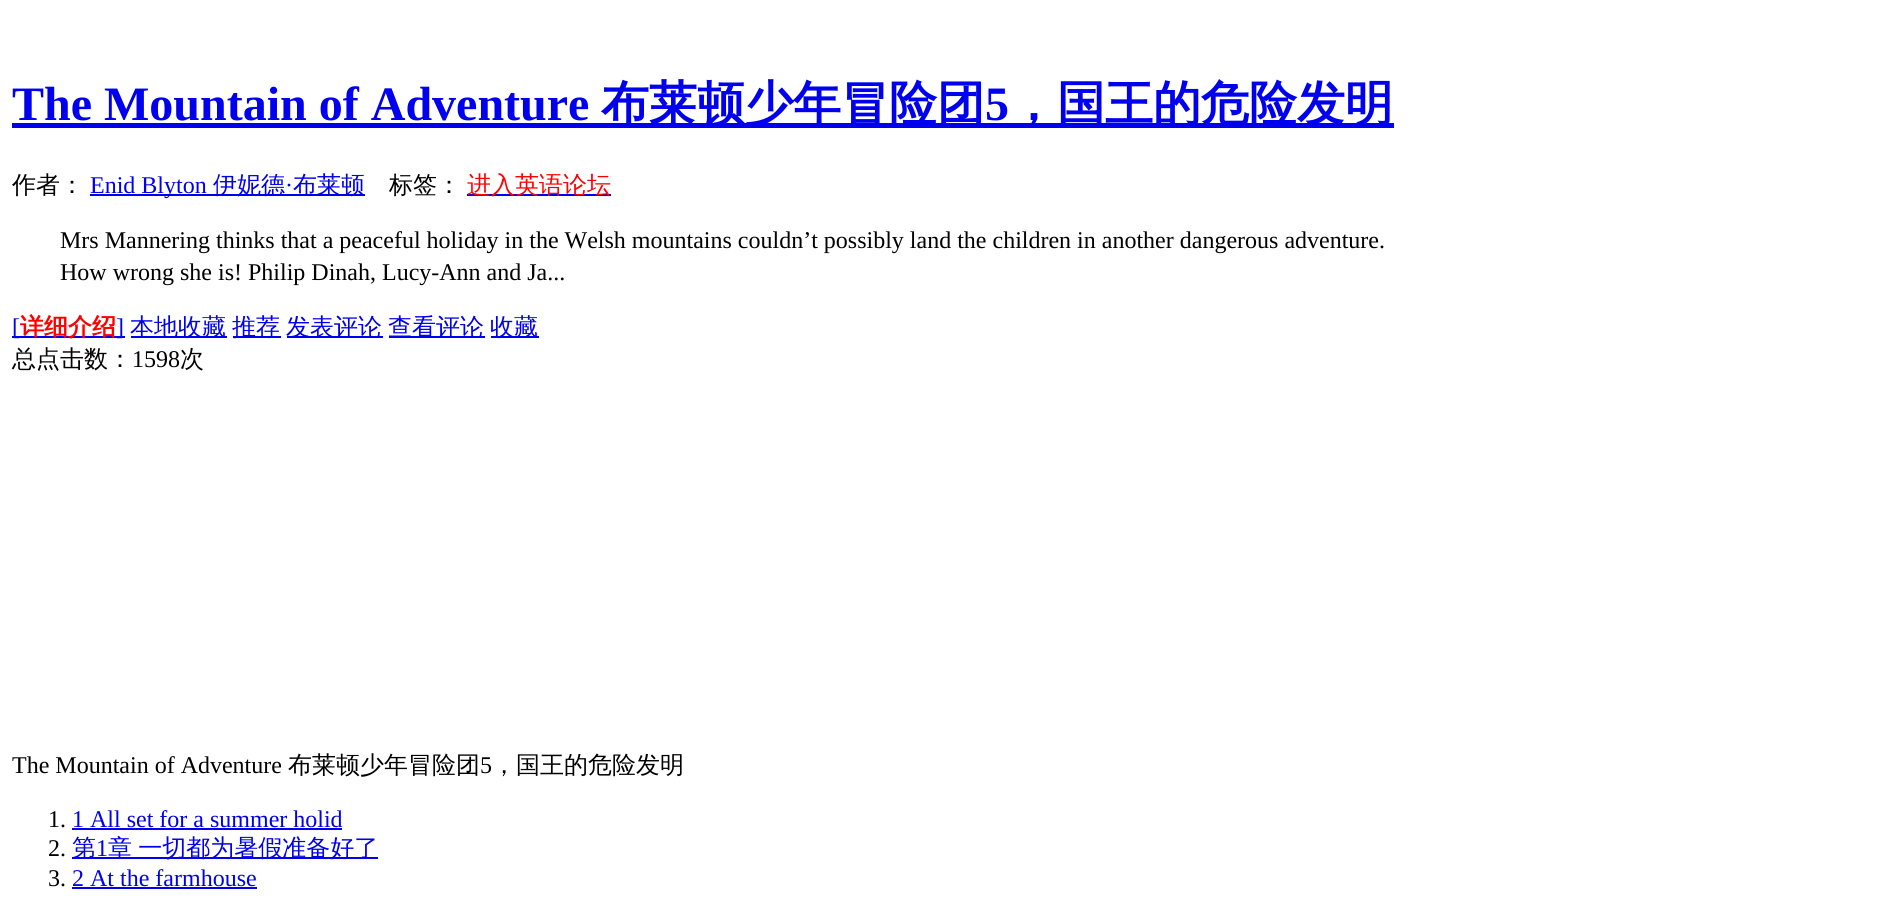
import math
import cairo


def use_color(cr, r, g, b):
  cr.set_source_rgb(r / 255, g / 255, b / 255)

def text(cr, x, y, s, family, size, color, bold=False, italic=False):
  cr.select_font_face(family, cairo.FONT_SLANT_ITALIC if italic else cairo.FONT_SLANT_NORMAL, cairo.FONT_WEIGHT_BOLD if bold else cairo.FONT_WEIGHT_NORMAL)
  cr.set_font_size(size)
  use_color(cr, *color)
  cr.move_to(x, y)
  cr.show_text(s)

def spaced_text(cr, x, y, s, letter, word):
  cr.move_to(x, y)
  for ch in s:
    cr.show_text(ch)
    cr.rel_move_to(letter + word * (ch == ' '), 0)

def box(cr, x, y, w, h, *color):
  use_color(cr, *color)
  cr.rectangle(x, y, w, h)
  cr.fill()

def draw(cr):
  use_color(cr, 255, 255, 255)
  cr.paint()
  box(cr, 12, 123, 1382, 5, 0, 0, 238)
  box(cr, 90, 194, 275, 2, 0, 0, 238)
  box(cr, 467, 194, 144, 2, 0, 0, 238)
  box(cr, 12, 336, 113, 2, 0, 0, 238)
  box(cr, 131, 336, 96, 2, 0, 0, 238)
  box(cr, 233, 336, 48, 2, 0, 0, 238)
  box(cr, 287, 336, 96, 2, 0, 0, 238)
  box(cr, 389, 336, 96, 2, 0, 0, 238)
  box(cr, 491, 336, 48, 2, 0, 0, 238)
  box(cr, 72, 828, 270, 2, 0, 0, 238)
  box(cr, 72, 857, 306, 2, 0, 0, 238)
  box(cr, 72, 887, 185, 2, 0, 0, 238)
  text(cr, 12, 120, "The Mountain of Adventure", "Liberation Serif", 48, (0, 0, 238), bold=True)
  text(cr, 601, 120, "布莱顿少年冒险团", "WenQuanYi Zen Hei", 48, (0, 0, 238), bold=True)
  text(cr, 985, 120, "5", "Liberation Serif", 48, (0, 0, 238), bold=True)
  text(cr, 1009, 120, "，国王的危险发明", "WenQuanYi Zen Hei", 48, (0, 0, 238), bold=True)
  text(cr, 12, 193, "作者：", "WenQuanYi Zen Hei Medium", 24, (0, 0, 0))
  text(cr, 90, 193, "Enid Blyton", "Liberation Serif", 24, (0, 0, 238))
  text(cr, 213, 193, "伊妮德", "WenQuanYi Zen Hei Medium", 24, (0, 0, 238))
  text(cr, 285, 193, "·", "Liberation Serif", 24, (0, 0, 238))
  text(cr, 293, 193, "布莱顿", "WenQuanYi Zen Hei Medium", 24, (0, 0, 238))
  text(cr, 389, 193, "标签：", "WenQuanYi Zen Hei Medium", 24, (0, 0, 0))
  text(cr, 467, 193, "进入英语论坛", "WenQuanYi Zen Hei Medium", 24, (255, 0, 0))
  text(cr, 60, 248, "Mrs Mannering thinks that a peaceful holiday in the Welsh mountains couldn’t possibly land the children in another dangerous adventure.", "Liberation Serif", 24, (0, 0, 0))
  text(cr, 60, 280, "How wrong she is! Philip Dinah, Lucy-Ann and Ja...", "Liberation Serif", 24, (0, 0, 0))
  text(cr, 12, 335, "[", "Liberation Serif", 24, (0, 0, 238))
  text(cr, 20, 335, "详细介绍", "WenQuanYi Zen Hei", 24, (255, 0, 0), bold=True)
  text(cr, 116, 335, "]", "Liberation Serif", 24, (0, 0, 238))
  text(cr, 130, 335, "本地收藏", "WenQuanYi Zen Hei Medium", 24, (0, 0, 238))
  text(cr, 232, 335, "推荐", "WenQuanYi Zen Hei Medium", 24, (0, 0, 238))
  text(cr, 286, 335, "发表评论", "WenQuanYi Zen Hei Medium", 24, (0, 0, 238))
  text(cr, 388, 335, "查看评论", "WenQuanYi Zen Hei Medium", 24, (0, 0, 238))
  text(cr, 490, 335, "收藏", "WenQuanYi Zen Hei Medium", 24, (0, 0, 238))
  text(cr, 12, 367, "总点击数：", "WenQuanYi Zen Hei Medium", 24, (0, 0, 0))
  text(cr, 132, 367, "1598", "Liberation Serif", 24, (0, 0, 0))
  text(cr, 180, 367, "次", "WenQuanYi Zen Hei Medium", 24, (0, 0, 0))
  text(cr, 12, 773, "The Mountain of Adventure", "Liberation Serif", 24, (0, 0, 0))
  text(cr, 288, 773, "布莱顿少年冒险团", "WenQuanYi Zen Hei Medium", 24, (0, 0, 0))
  text(cr, 480, 773, "5", "Liberation Serif", 24, (0, 0, 0))
  text(cr, 492, 773, "，国王的危险发明", "WenQuanYi Zen Hei Medium", 24, (0, 0, 0))
  text(cr, 48, 827, "1.", "Liberation Serif", 24, (0, 0, 0))
  text(cr, 72, 827, "1 All set for a summer holid", "Liberation Serif", 24, (0, 0, 238))
  text(cr, 48, 856, "2.", "Liberation Serif", 24, (0, 0, 0))
  text(cr, 72, 856, "第", "WenQuanYi Zen Hei Medium", 24, (0, 0, 238))
  text(cr, 96, 856, "1", "Liberation Serif", 24, (0, 0, 238))
  cr.select_font_face("WenQuanYi Zen Hei Medium")
  spaced_text(cr, 108, 856, "章 一切都为暑假准备好了", 0, -1)
  text(cr, 48, 886, "3.", "Liberation Serif", 24, (0, 0, 0))
  text(cr, 72, 886, "2 At the farmhouse", "Liberation Serif", 24, (0, 0, 238))


surface = cairo.ImageSurface(cairo.FORMAT_RGB24, 1881, 899)
cr = cairo.Context(surface)
options = cairo.FontOptions()
options.set_hint_metrics(cairo.HINT_METRICS_OFF)
options.set_hint_style(cairo.HINT_STYLE_NONE)
cr.set_font_options(options)
cr.set_miter_limit(4)
draw(cr)
surface.write_to_png("out.png")
